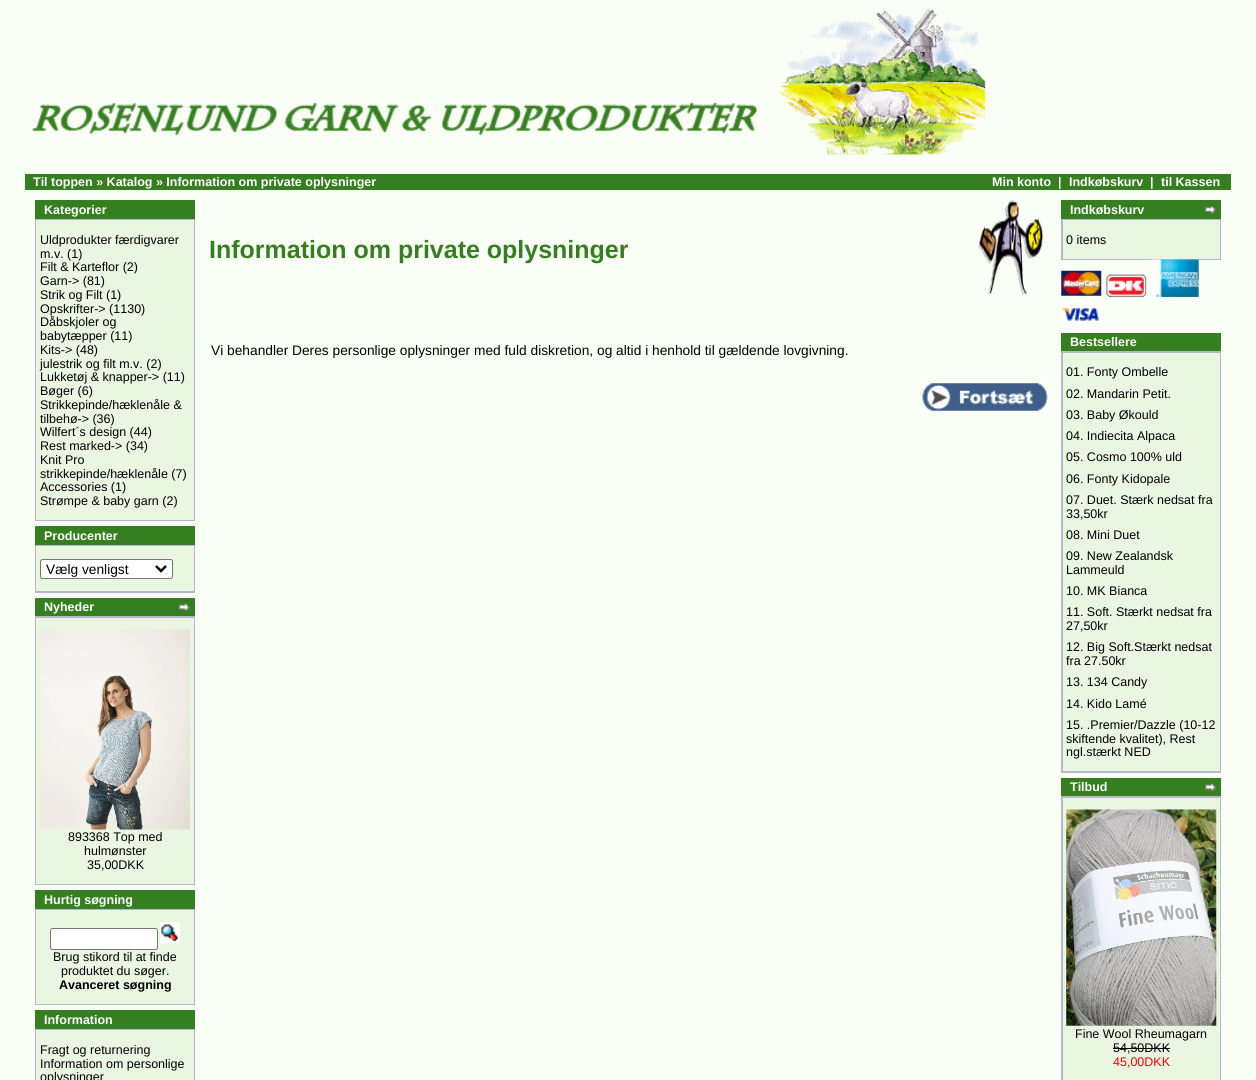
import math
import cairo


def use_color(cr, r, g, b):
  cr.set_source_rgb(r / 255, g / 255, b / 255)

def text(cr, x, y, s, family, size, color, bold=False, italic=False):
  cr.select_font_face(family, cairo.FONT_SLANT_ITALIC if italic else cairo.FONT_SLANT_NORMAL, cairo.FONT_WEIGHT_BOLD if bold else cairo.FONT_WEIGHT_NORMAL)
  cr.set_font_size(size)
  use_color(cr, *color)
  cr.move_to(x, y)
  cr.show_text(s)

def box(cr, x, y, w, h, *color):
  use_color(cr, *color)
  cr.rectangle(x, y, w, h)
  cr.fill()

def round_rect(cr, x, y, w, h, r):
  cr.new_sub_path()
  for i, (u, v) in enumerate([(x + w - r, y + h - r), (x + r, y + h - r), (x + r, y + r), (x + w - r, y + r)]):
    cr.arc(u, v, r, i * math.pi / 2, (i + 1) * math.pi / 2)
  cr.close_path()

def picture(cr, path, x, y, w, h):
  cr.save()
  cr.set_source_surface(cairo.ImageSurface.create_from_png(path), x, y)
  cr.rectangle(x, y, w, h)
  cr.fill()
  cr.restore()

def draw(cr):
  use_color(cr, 249, 255, 245)
  cr.paint()
  picture(cr, "img_01.png", 31, 8, 955, 147)
  box(cr, 25, 174, 1206, 16, 54, 127, 32)
  box(cr, 35, 200, 160, 19, 54, 127, 32)
  box(cr, 35, 219, 160, 302, 182, 183, 203)
  box(cr, 36, 220, 158, 300, 233, 246, 226)
  box(cr, 35, 526, 160, 19, 54, 127, 32)
  box(cr, 35, 545, 160, 48, 182, 183, 203)
  box(cr, 36, 546, 158, 45, 233, 246, 226)
  use_color(cr, 255, 255, 255)
  round_rect(cr, 40.5, 559.5, 132, 19, 2)
  cr.fill_preserve()
  use_color(cr, 118, 118, 118)
  cr.set_line_width(1)
  cr.stroke()
  cr.new_path()
  cr.move_to(156, 566)
  cr.line_to(161, 571)
  cr.line_to(166, 566)
  use_color(cr, 0, 0, 0)
  cr.set_line_width(2.5)
  cr.stroke()
  box(cr, 35, 598, 160, 18, 54, 127, 32)
  picture(cr, "img_02.png", 178, 603, 13, 8)
  box(cr, 35, 616, 160, 269, 182, 183, 203)
  box(cr, 36, 618, 158, 266, 233, 246, 226)
  picture(cr, "img_03.png", 40, 629, 150, 201)
  box(cr, 35, 890, 160, 19, 54, 127, 32)
  box(cr, 35, 909, 160, 96, 182, 183, 203)
  box(cr, 36, 910, 158, 94, 233, 246, 226)
  use_color(cr, 255, 255, 255)
  round_rect(cr, 50.5, 928.5, 107, 21, 2)
  cr.fill_preserve()
  use_color(cr, 118, 118, 118)
  cr.set_line_width(1)
  cr.stroke()
  picture(cr, "img_04.png", 160, 922, 20, 22)
  box(cr, 35, 1010, 160, 19, 54, 127, 32)
  box(cr, 35, 1029, 160, 51, 182, 183, 203)
  box(cr, 36, 1030, 158, 50, 233, 246, 226)
  picture(cr, "img_05.png", 978, 200, 65, 96)
  picture(cr, "img_06.png", 922, 383, 126, 28)
  box(cr, 1061, 200, 160, 19, 54, 127, 32)
  picture(cr, "img_07.png", 1204, 205, 13, 9)
  box(cr, 1061, 219, 160, 41, 182, 183, 203)
  box(cr, 1063, 220, 157, 39, 233, 246, 226)
  picture(cr, "img_08.png", 1061, 270, 41, 26)
  picture(cr, "img_09.png", 1106, 274, 41, 23)
  picture(cr, "img_10.png", 1151, 259, 48, 38)
  picture(cr, "img_11.png", 1061, 302, 40, 25)
  box(cr, 1061, 333, 160, 18, 54, 127, 32)
  box(cr, 1061, 351, 160, 422, 182, 183, 203)
  box(cr, 1063, 353, 157, 418, 233, 246, 226)
  box(cr, 1061, 778, 160, 18, 54, 127, 32)
  picture(cr, "img_12.png", 1204, 783, 13, 8)
  box(cr, 1061, 796, 160, 284, 182, 183, 203)
  box(cr, 1063, 798, 157, 282, 233, 246, 226)
  picture(cr, "img_13.png", 1066, 809, 151, 217)
  box(cr, 1113, 1048, 57, 1, 0, 0, 0)
  text(cr, 33, 186, "Til toppen » Katalog » Information om private oplysninger", "Liberation Sans", 12.5, (255, 255, 255), bold=True)
  text(cr, 992, 186, "Min konto", "Liberation Sans", 12.5, (255, 255, 255), bold=True)
  text(cr, 1058, 186, "|", "Liberation Sans", 12.5, (255, 255, 255), bold=True)
  text(cr, 1069, 186, "Indkøbskurv", "Liberation Sans", 12.5, (255, 255, 255), bold=True)
  text(cr, 1150, 186, "|", "Liberation Sans", 12.5, (255, 255, 255), bold=True)
  text(cr, 1161, 186, "til Kassen", "Liberation Sans", 12.5, (255, 255, 255), bold=True)
  text(cr, 44, 214, "Kategorier", "Liberation Sans", 12.5, (255, 255, 255), bold=True)
  text(cr, 40, 244, "Uldprodukter færdigvarer", "Liberation Sans", 12.5, (0, 0, 0))
  text(cr, 40, 258, "m.v. (1)", "Liberation Sans", 12.5, (0, 0, 0))
  text(cr, 40, 271, "Filt & Karteflor (2)", "Liberation Sans", 12.5, (0, 0, 0))
  text(cr, 40, 285, "Garn-> (81)", "Liberation Sans", 12.5, (0, 0, 0))
  text(cr, 40, 299, "Strik og Filt (1)", "Liberation Sans", 12.5, (0, 0, 0))
  text(cr, 40, 313, "Opskrifter-> (1130)", "Liberation Sans", 12.5, (0, 0, 0))
  text(cr, 40, 326, "Dåbskjoler og", "Liberation Sans", 12.5, (0, 0, 0))
  text(cr, 40, 340, "babytæpper (11)", "Liberation Sans", 12.5, (0, 0, 0))
  text(cr, 40, 354, "Kits-> (48)", "Liberation Sans", 12.5, (0, 0, 0))
  text(cr, 40, 368, "julestrik og filt m.v. (2)", "Liberation Sans", 12.5, (0, 0, 0))
  text(cr, 40, 381, "Lukketøj & knapper-> (11)", "Liberation Sans", 12.5, (0, 0, 0))
  text(cr, 40, 395, "Bøger (6)", "Liberation Sans", 12.5, (0, 0, 0))
  text(cr, 40, 409, "Strikkepinde/hæklenåle &", "Liberation Sans", 12.5, (0, 0, 0))
  text(cr, 40, 423, "tilbehø-> (36)", "Liberation Sans", 12.5, (0, 0, 0))
  text(cr, 40, 436, "Wilfert´s design (44)", "Liberation Sans", 12.5, (0, 0, 0))
  text(cr, 40, 450, "Rest marked-> (34)", "Liberation Sans", 12.5, (0, 0, 0))
  text(cr, 40, 464, "Knit Pro", "Liberation Sans", 12.5, (0, 0, 0))
  text(cr, 40, 478, "strikkepinde/hæklenåle (7)", "Liberation Sans", 12.5, (0, 0, 0))
  text(cr, 40, 491, "Accessories (1)", "Liberation Sans", 12.5, (0, 0, 0))
  text(cr, 40, 505, "Strømpe & baby garn (2)", "Liberation Sans", 12.5, (0, 0, 0))
  text(cr, 44, 540, "Producenter", "Liberation Sans", 12.5, (255, 255, 255), bold=True)
  text(cr, 46, 574, "Vælg venligst", "Liberation Sans", 13.75, (0, 0, 0))
  text(cr, 44, 611, "Nyheder", "Liberation Sans", 12.5, (255, 255, 255), bold=True)
  text(cr, 68, 841, "893368 Top med", "Liberation Sans", 12.5, (0, 0, 0))
  text(cr, 84, 855, "hulmønster", "Liberation Sans", 12.5, (0, 0, 0))
  text(cr, 87, 869, "35,00DKK", "Liberation Sans", 12.5, (0, 0, 0))
  text(cr, 44, 904, "Hurtig søgning", "Liberation Sans", 12.5, (255, 255, 255), bold=True)
  text(cr, 53, 961, "Brug stikord til at finde", "Liberation Sans", 12.5, (0, 0, 0))
  text(cr, 61, 975, "produktet du søger.", "Liberation Sans", 12.5, (0, 0, 0))
  text(cr, 59, 989, "Avanceret søgning", "Liberation Sans", 12.5, (0, 0, 0), bold=True)
  text(cr, 44, 1024, "Information", "Liberation Sans", 12.5, (255, 255, 255), bold=True)
  text(cr, 40, 1054, "Fragt og returnering", "Liberation Sans", 12.5, (0, 0, 0))
  text(cr, 40, 1068, "Information om personlige", "Liberation Sans", 12.5, (0, 0, 0))
  text(cr, 40, 1081, "oplysninger", "Liberation Sans", 12.5, (0, 0, 0))
  text(cr, 209, 258, "Information om private oplysninger", "Liberation Sans", 25, (54, 127, 32), bold=True)
  text(cr, 211, 355, "Vi behandler Deres personlige oplysninger med fuld diskretion, og altid i henhold til gældende lovgivning.", "Liberation Sans", 13.75, (0, 0, 0))
  text(cr, 1070, 214, "Indkøbskurv", "Liberation Sans", 12.5, (255, 255, 255), bold=True)
  text(cr, 1066, 244, "0 items", "Liberation Sans", 12.5, (0, 0, 0))
  text(cr, 1070, 346, "Bestsellere", "Liberation Sans", 12.5, (255, 255, 255), bold=True)
  text(cr, 1066, 376, "01. Fonty Ombelle", "Liberation Sans", 12.5, (0, 0, 0))
  text(cr, 1066, 398, "02. Mandarin Petit.", "Liberation Sans", 12.5, (0, 0, 0))
  text(cr, 1066, 419, "03. Baby Økould", "Liberation Sans", 12.5, (0, 0, 0))
  text(cr, 1066, 440, "04. Indiecita Alpaca", "Liberation Sans", 12.5, (0, 0, 0))
  text(cr, 1066, 461, "05. Cosmo 100% uld", "Liberation Sans", 12.5, (0, 0, 0))
  text(cr, 1066, 483, "06. Fonty Kidopale", "Liberation Sans", 12.5, (0, 0, 0))
  text(cr, 1066, 504, "07. Duet. Stærk nedsat fra", "Liberation Sans", 12.5, (0, 0, 0))
  text(cr, 1066, 518, "33,50kr", "Liberation Sans", 12.5, (0, 0, 0))
  text(cr, 1066, 539, "08. Mini Duet", "Liberation Sans", 12.5, (0, 0, 0))
  text(cr, 1066, 560, "09. New Zealandsk", "Liberation Sans", 12.5, (0, 0, 0))
  text(cr, 1066, 574, "Lammeuld", "Liberation Sans", 12.5, (0, 0, 0))
  text(cr, 1066, 595, "10. MK Bianca", "Liberation Sans", 12.5, (0, 0, 0))
  text(cr, 1066, 616, "11. Soft. Stærkt nedsat fra", "Liberation Sans", 12.5, (0, 0, 0))
  text(cr, 1066, 630, "27,50kr", "Liberation Sans", 12.5, (0, 0, 0))
  text(cr, 1066, 651, "12. Big Soft.Stærkt nedsat", "Liberation Sans", 12.5, (0, 0, 0))
  text(cr, 1066, 665, "fra 27.50kr", "Liberation Sans", 12.5, (0, 0, 0))
  text(cr, 1066, 686, "13. 134 Candy", "Liberation Sans", 12.5, (0, 0, 0))
  text(cr, 1066, 708, "14. Kido Lamé", "Liberation Sans", 12.5, (0, 0, 0))
  text(cr, 1066, 729, "15. .Premier/Dazzle (10-12", "Liberation Sans", 12.5, (0, 0, 0))
  text(cr, 1066, 743, "skiftende kvalitet), Rest", "Liberation Sans", 12.5, (0, 0, 0))
  text(cr, 1066, 756, "ngl.stærkt NED", "Liberation Sans", 12.5, (0, 0, 0))
  text(cr, 1070, 791, "Tilbud", "Liberation Sans", 12.5, (255, 255, 255), bold=True)
  text(cr, 1075, 1038, "Fine Wool Rheumagarn", "Liberation Sans", 12.5, (0, 0, 0))
  text(cr, 1113, 1052, "54,50DKK", "Liberation Sans", 12.5, (0, 0, 0))
  text(cr, 1113, 1066, "45,00DKK", "Liberation Sans", 12.5, (255, 0, 0))


surface = cairo.ImageSurface(cairo.FORMAT_RGB24, 1256, 1080)
cr = cairo.Context(surface)
options = cairo.FontOptions()
options.set_hint_metrics(cairo.HINT_METRICS_OFF)
options.set_hint_style(cairo.HINT_STYLE_NONE)
cr.set_font_options(options)
cr.set_miter_limit(4)
draw(cr)
surface.write_to_png("out.png")
